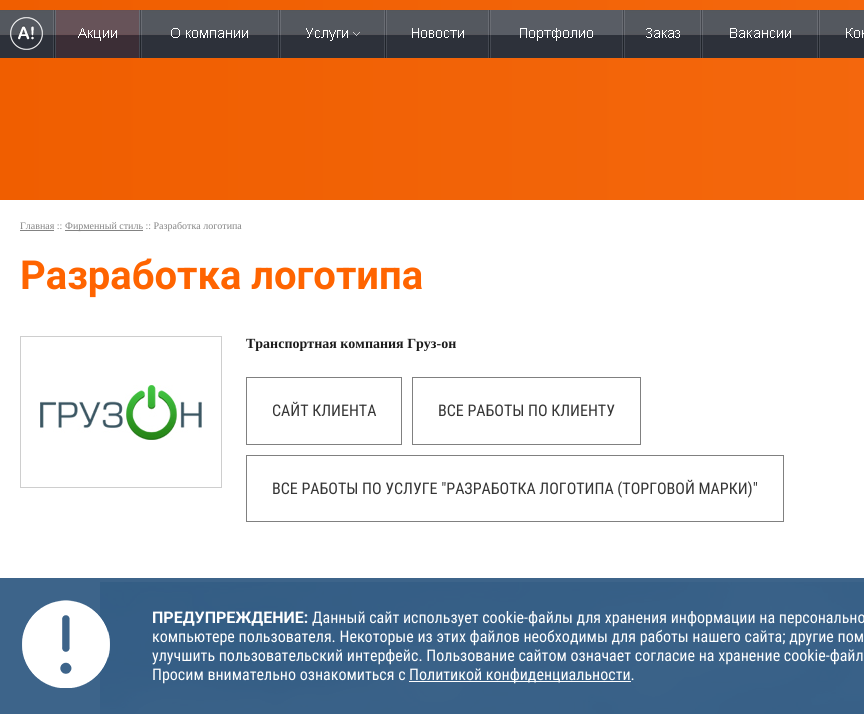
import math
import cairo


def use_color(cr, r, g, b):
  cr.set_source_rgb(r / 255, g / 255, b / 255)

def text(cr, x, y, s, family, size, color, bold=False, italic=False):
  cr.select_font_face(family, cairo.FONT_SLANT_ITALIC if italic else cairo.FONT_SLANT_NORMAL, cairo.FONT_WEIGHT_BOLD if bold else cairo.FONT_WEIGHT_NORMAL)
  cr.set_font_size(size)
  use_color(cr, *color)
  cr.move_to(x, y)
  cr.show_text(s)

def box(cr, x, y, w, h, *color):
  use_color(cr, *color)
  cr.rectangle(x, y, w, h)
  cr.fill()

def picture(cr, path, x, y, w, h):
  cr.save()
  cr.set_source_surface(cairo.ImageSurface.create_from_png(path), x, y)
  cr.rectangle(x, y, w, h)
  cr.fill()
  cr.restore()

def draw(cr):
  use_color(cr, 255, 255, 255)
  cr.paint()
  box(cr, 0, 578, 864, 136, 61, 100, 138)
  gradient = cairo.LinearGradient(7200, 600, 0, 600)
  gradient.add_color_stop_rgba(0, 1, 0.392, 0, 1)
  gradient.add_color_stop_rgba(0.5, 1, 0.518, 0.208, 1)
  gradient.add_color_stop_rgba(1, 0.941, 0.369, 0, 1)
  cr.set_source(gradient)
  cr.rectangle(0, 0, 864, 200)
  cr.fill()
  picture(cr, "img_01.png", 0, 10, 864, 48)
  picture(cr, "img_02.png", 10, 17, 33, 33)
  picture(cr, "img_03.png", 53, 10, 3, 48)
  picture(cr, "img_04.png", 56, 10, 83, 48)
  picture(cr, "img_05.png", 78, 28, 39, 13)
  picture(cr, "img_03.png", 139, 10, 3, 48)
  picture(cr, "img_06.png", 171, 28, 77, 10)
  picture(cr, "img_03.png", 278, 10, 3, 48)
  picture(cr, "img_07.png", 306, 28, 54, 13)
  picture(cr, "img_03.png", 384, 10, 3, 48)
  picture(cr, "img_08.png", 412, 28, 52, 10)
  picture(cr, "img_03.png", 488, 10, 3, 48)
  box(cr, 491, 10, 131, 25, 89, 93, 101)
  picture(cr, "img_09.png", 520, 28, 73, 13)
  picture(cr, "img_03.png", 622, 10, 3, 48)
  picture(cr, "img_10.png", 646, 28, 34, 10)
  picture(cr, "img_03.png", 700, 10, 3, 48)
  picture(cr, "img_11.png", 730, 28, 61, 10)
  picture(cr, "img_03.png", 817, 10, 3, 48)
  picture(cr, "img_12.png", 846, 28, 18, 10)
  box(cr, 20, 230, 34, 1, 131, 131, 131)
  box(cr, 65, 230, 78, 1, 131, 131, 131)
  cr.rectangle(20.5, 336.5, 201, 151)
  use_color(cr, 206, 206, 206)
  cr.set_line_width(1)
  cr.stroke()
  picture(cr, "img_13.png", 40, 385, 162, 55)
  cr.rectangle(246.5, 377.5, 155, 67)
  use_color(cr, 128, 128, 128)
  cr.stroke()
  cr.rectangle(412.5, 377.5, 228, 67)
  cr.stroke()
  cr.rectangle(246.5, 455.5, 537, 66)
  cr.stroke()
  picture(cr, "img_14.png", 100, 582, 764, 132)
  picture(cr, "img_15.png", 22, 600, 88, 88)
  box(cr, 409, 681, 222, 1, 255, 255, 255)
  text(cr, 20, 229, "Главная ::", "Liberation Serif", 10, (131, 131, 131))
  text(cr, 65, 229, "Фирменный стиль :: Разработка логотипа", "Liberation Serif", 10, (131, 131, 131))
  text(cr, 20, 289, "Разработка логотипа", "Roboto", 40, (255, 100, 0), bold=True)
  text(cr, 246, 348, "Транспортная компания Груз-он", "Liberation Serif", 14, (27, 27, 27), bold=True)
  text(cr, 272, 416, "САЙТ КЛИЕНТА", "Roboto Condensed", 16, (53, 53, 53))
  text(cr, 438, 416, "ВСЕ РАБОТЫ ПО КЛИЕНТУ", "Roboto Condensed", 16, (53, 53, 53))
  text(cr, 272, 494, "ВСЕ РАБОТЫ ПО УСЛУГЕ \"РАЗРАБОТКА ЛОГОТИПА (ТОРГОВОЙ МАРКИ)\"", "Roboto Condensed", 16, (53, 53, 53))
  text(cr, 152, 623, "ПРЕДУПРЕЖДЕНИЕ:", "Roboto", 16, (255, 255, 255), bold=True)
  text(cr, 312, 623, "Данный сайт использует cookie-файлы для хранения информации на персонально", "Roboto Condensed", 16, (255, 255, 255))
  text(cr, 152, 642, "компьютере пользователя. Некоторые из этих файлов необходимы для работы нашего сайта; другие пом", "Roboto Condensed", 16, (255, 255, 255))
  text(cr, 152, 661, "улучшить пользовательский интерфейс. Пользование сайтом означает согласие на хранение cookie-файл", "Roboto Condensed", 16, (255, 255, 255))
  text(cr, 152, 680, "Просим внимательно ознакомиться с", "Roboto Condensed", 16, (255, 255, 255))
  text(cr, 409, 680, "Политикой конфиденциальности.", "Roboto Condensed", 16, (255, 255, 255))


surface = cairo.ImageSurface(cairo.FORMAT_RGB24, 864, 714)
cr = cairo.Context(surface)
options = cairo.FontOptions()
options.set_hint_metrics(cairo.HINT_METRICS_OFF)
options.set_hint_style(cairo.HINT_STYLE_NONE)
cr.set_font_options(options)
cr.set_miter_limit(4)
draw(cr)
surface.write_to_png("out.png")
